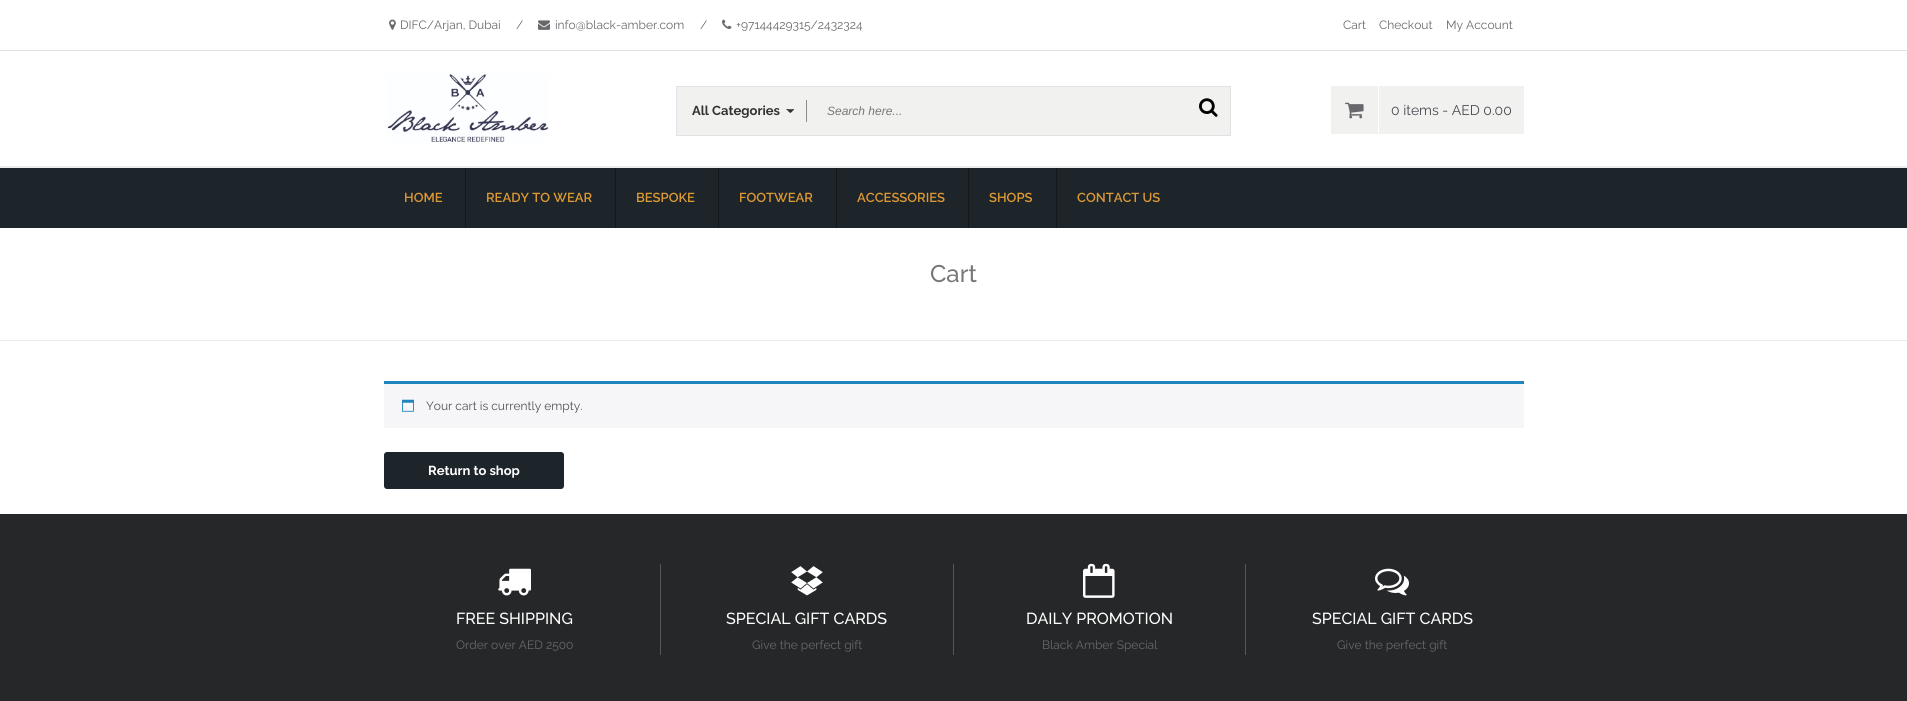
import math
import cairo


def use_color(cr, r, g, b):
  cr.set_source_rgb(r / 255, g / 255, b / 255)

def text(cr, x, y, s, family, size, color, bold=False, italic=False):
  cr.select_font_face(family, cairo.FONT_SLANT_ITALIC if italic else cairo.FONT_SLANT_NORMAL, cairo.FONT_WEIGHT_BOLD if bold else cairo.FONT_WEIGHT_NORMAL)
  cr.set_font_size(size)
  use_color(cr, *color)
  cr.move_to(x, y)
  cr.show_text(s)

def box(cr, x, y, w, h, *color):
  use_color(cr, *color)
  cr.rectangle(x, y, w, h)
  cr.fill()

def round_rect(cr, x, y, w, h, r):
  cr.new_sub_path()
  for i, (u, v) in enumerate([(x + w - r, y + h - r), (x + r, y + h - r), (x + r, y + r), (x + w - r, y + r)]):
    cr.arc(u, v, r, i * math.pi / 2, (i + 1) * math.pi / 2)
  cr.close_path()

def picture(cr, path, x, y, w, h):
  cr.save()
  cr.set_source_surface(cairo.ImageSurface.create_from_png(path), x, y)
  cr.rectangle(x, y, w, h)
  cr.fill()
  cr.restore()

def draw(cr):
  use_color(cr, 255, 255, 255)
  cr.paint()
  box(cr, 0, 50, 1907, 1, 225, 225, 225)
  picture(cr, "img_01.png", 389, 19, 7, 11)
  picture(cr, "img_02.png", 538, 20, 12, 10)
  picture(cr, "img_03.png", 722, 19, 10, 10)
  picture(cr, "img_04.png", 387, 73, 162, 69)
  use_color(cr, 241, 241, 240)
  cr.rectangle(676.5, 86.5, 554, 49)
  cr.fill_preserve()
  use_color(cr, 226, 225, 230)
  cr.set_line_width(1)
  cr.stroke()
  picture(cr, "img_05.png", 786, 109, 8, 4)
  box(cr, 806, 100, 1, 22, 142, 139, 140)
  picture(cr, "img_06.png", 1199, 98, 19, 19)
  box(cr, 1331, 86, 193, 48, 241, 241, 240)
  box(cr, 1378, 86, 1, 48, 255, 255, 255)
  picture(cr, "img_07.png", 1345, 102, 19, 17)
  box(cr, 0, 168, 1907, 60, 29, 36, 42)
  box(cr, 0, 166, 1907, 2, 236, 236, 239)
  box(cr, 465, 168, 1, 60, 20, 24, 29)
  box(cr, 615, 168, 1, 60, 20, 24, 29)
  box(cr, 718, 168, 1, 60, 20, 24, 29)
  box(cr, 836, 168, 1, 60, 20, 24, 29)
  box(cr, 968, 168, 1, 60, 20, 24, 29)
  box(cr, 1056, 168, 1, 60, 20, 24, 29)
  box(cr, 0, 340, 1907, 1, 234, 234, 234)
  box(cr, 384, 384, 1140, 44, 246, 245, 248)
  box(cr, 384, 381, 1140, 3, 30, 133, 190)
  picture(cr, "img_08.png", 402, 399, 12, 13)
  use_color(cr, 29, 36, 42)
  round_rect(cr, 384, 452, 180, 37, 3)
  cr.fill()
  box(cr, 0, 514, 1907, 187, 38, 39, 40)
  box(cr, 660, 564, 1, 91, 87, 87, 88)
  picture(cr, "img_09.png", 498, 568, 33, 28)
  box(cr, 953, 564, 1, 91, 87, 87, 88)
  picture(cr, "img_10.png", 791, 566, 32, 30)
  box(cr, 1245, 564, 1, 91, 87, 87, 88)
  picture(cr, "img_11.png", 1083, 563, 32, 35)
  picture(cr, "img_12.png", 1375, 568, 34, 28)
  text(cr, 400, 29, "DIFC/Arjan, Dubai", "Raleway", 12, (105, 104, 108))
  text(cr, 516, 29, "/", "Raleway", 12, (105, 104, 108))
  text(cr, 555, 29, "info@black-amber.com", "Raleway", 12, (105, 104, 108))
  text(cr, 700, 29, "/", "Raleway", 12, (105, 104, 108))
  text(cr, 736, 29, "+97144429315/2432324", "Raleway", 12, (105, 104, 108))
  text(cr, 1343, 29, "Cart", "Raleway", 12, (105, 104, 108))
  text(cr, 1379, 29, "Checkout", "Raleway", 12, (105, 104, 108))
  text(cr, 1446, 29, "My Account", "Raleway", 12, (105, 104, 108))
  text(cr, 692, 115, "All Categories", "Raleway", 13, (51, 51, 51), bold=True)
  text(cr, 827, 115, "Search here...", "Liberation Sans", 12, (119, 119, 119), italic=True)
  text(cr, 1391, 115, "0 items - AED 0.00", "Raleway", 14, (74, 74, 81))
  text(cr, 404, 202, "HOME", "Raleway SemiBold", 13, (221, 153, 51))
  text(cr, 486, 202, "READY TO WEAR", "Raleway SemiBold", 13, (221, 153, 51))
  text(cr, 636, 202, "BESPOKE", "Raleway SemiBold", 13, (221, 153, 51))
  text(cr, 739, 202, "FOOTWEAR", "Raleway SemiBold", 13, (221, 153, 51))
  text(cr, 857, 202, "ACCESSORIES", "Raleway SemiBold", 13, (221, 153, 51))
  text(cr, 989, 202, "SHOPS", "Raleway SemiBold", 13, (221, 153, 51))
  text(cr, 1077, 202, "CONTACT US", "Raleway SemiBold", 13, (221, 153, 51))
  text(cr, 930, 282, "Cart", "Raleway Medium", 24, (119, 119, 119))
  text(cr, 426, 410, "Your cart is currently empty.", "Raleway", 12, (81, 81, 81))
  text(cr, 428, 475, "Return to shop", "Raleway", 13, (255, 255, 255), bold=True)
  text(cr, 456, 624, "FREE SHIPPING", "Raleway Medium", 16, (255, 255, 255))
  text(cr, 456, 649, "Order over AED 2500", "Raleway", 12, (105, 104, 108))
  text(cr, 726, 624, "SPECIAL GIFT CARDS", "Raleway Medium", 16, (255, 255, 255))
  text(cr, 752, 649, "Give the perfect gift", "Raleway", 12, (105, 104, 108))
  text(cr, 1026, 624, "DAILY PROMOTION", "Raleway Medium", 16, (255, 255, 255))
  text(cr, 1042, 649, "Black Amber Special", "Raleway", 12, (105, 104, 108))
  text(cr, 1312, 624, "SPECIAL GIFT CARDS", "Raleway Medium", 16, (255, 255, 255))
  text(cr, 1337, 649, "Give the perfect gift", "Raleway", 12, (105, 104, 108))


surface = cairo.ImageSurface(cairo.FORMAT_RGB24, 1907, 701)
cr = cairo.Context(surface)
options = cairo.FontOptions()
options.set_hint_metrics(cairo.HINT_METRICS_OFF)
options.set_hint_style(cairo.HINT_STYLE_NONE)
cr.set_font_options(options)
cr.set_miter_limit(4)
draw(cr)
surface.write_to_png("out.png")
